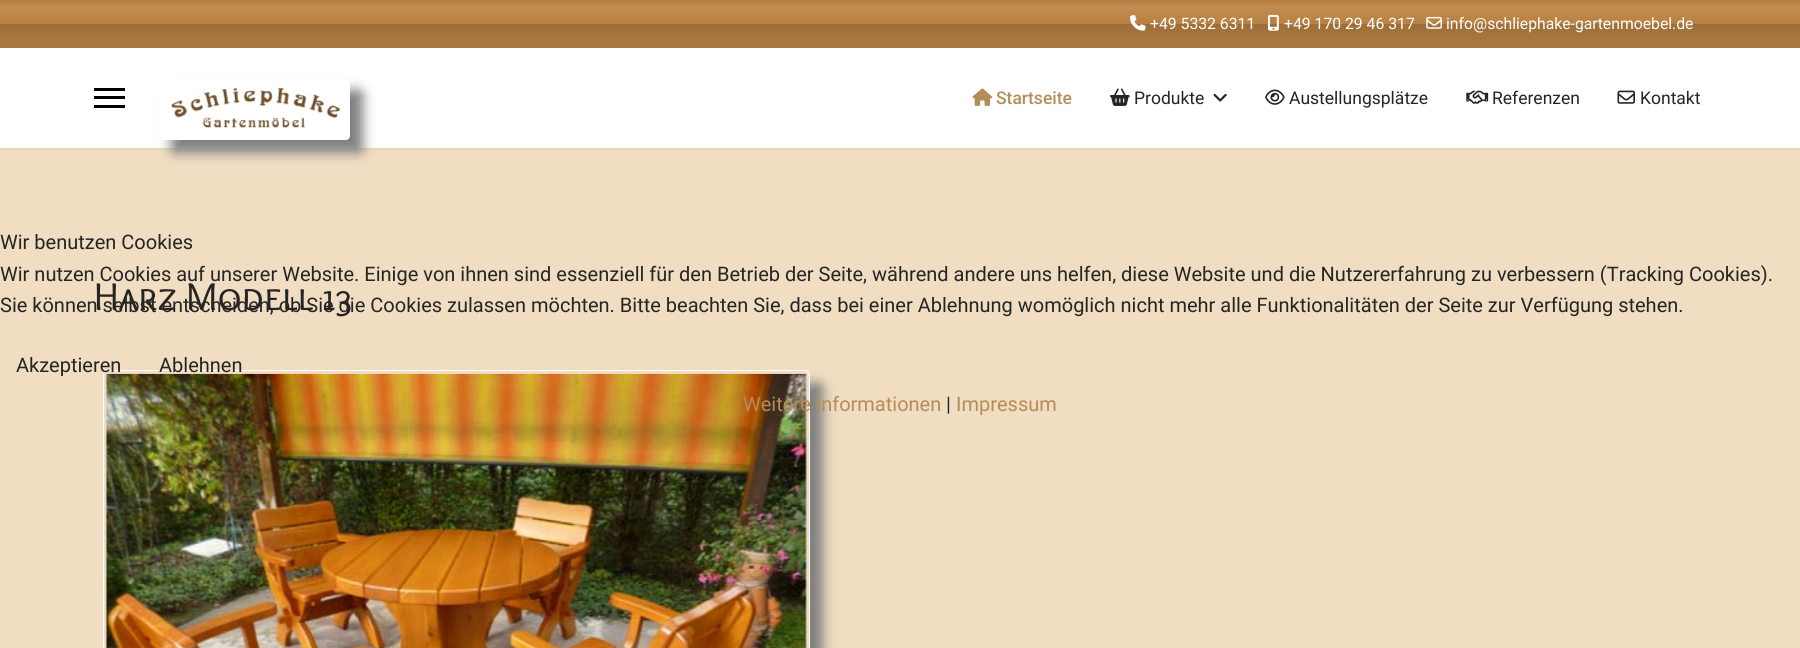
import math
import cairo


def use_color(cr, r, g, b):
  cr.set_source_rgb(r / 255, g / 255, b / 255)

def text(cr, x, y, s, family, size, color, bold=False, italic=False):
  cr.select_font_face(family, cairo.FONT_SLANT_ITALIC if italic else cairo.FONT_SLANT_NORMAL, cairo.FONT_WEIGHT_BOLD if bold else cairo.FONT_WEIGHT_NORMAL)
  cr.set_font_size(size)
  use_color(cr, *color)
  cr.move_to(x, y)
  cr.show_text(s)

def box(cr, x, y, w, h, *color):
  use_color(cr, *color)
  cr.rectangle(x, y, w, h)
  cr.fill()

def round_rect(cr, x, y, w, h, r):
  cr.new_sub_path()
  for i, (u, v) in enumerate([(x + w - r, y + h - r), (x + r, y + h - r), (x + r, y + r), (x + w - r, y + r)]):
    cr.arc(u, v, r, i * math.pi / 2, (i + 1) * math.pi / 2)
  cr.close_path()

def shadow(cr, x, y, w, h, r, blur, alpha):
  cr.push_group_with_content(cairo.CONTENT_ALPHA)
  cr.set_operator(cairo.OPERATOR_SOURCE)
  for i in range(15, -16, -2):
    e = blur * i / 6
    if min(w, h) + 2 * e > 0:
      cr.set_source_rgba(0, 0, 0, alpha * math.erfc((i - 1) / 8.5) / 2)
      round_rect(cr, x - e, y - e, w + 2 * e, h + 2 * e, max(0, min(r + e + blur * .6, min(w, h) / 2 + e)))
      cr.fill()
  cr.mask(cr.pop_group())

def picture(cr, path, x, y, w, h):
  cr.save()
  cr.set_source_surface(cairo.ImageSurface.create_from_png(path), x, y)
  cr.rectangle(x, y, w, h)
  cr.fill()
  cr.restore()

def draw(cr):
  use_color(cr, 241, 221, 193)
  cr.paint()
  gradient = cairo.LinearGradient(900, 0, 900, 48)
  gradient.add_color_stop_rgba(0, 0.706, 0.494, 0.255, 1)
  gradient.add_color_stop_rgba(0.05, 0.733, 0.514, 0.267, 1)
  gradient.add_color_stop_rgba(0.15, 0.757, 0.553, 0.325, 1)
  gradient.add_color_stop_rgba(0.43, 0.733, 0.514, 0.267, 1)
  gradient.add_color_stop_rgba(0.5, 0.722, 0.506, 0.259, 1)
  gradient.add_color_stop_rgba(0.5, 0.616, 0.431, 0.224, 1)
  gradient.add_color_stop_rgba(1, 0.69, 0.486, 0.251, 1)
  cr.set_source(gradient)
  cr.rectangle(0, 0, 1800, 48)
  cr.fill()
  picture(cr, "img_01.png", 1130, 15, 16, 16)
  picture(cr, "img_02.png", 1268, 15, 11, 16)
  picture(cr, "img_03.png", 1426, 16, 16, 13)
  use_color(cr, 0, 0, 0)
  shadow(cr, 0, 48, 1800, 100, 0, 2.5, 0.1)
  box(cr, 0, 48, 1800, 100, 255, 255, 255)
  box(cr, 94, 88, 31, 3, 0, 0, 0)
  box(cr, 94, 96, 31, 3, 0, 0, 0)
  box(cr, 94, 105, 31, 3, 0, 0, 0)
  cr.save()
  cr.set_fill_rule(cairo.FILL_RULE_EVEN_ODD)
  cr.new_path()
  cr.move_to(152, 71)
  cr.line_to(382, 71)
  cr.line_to(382, 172)
  cr.line_to(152, 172)
  cr.close_path()
  cr.move_to(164, 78)
  cr.line_to(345, 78)
  cr.curve_to(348, 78, 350, 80, 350, 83)
  cr.line_to(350, 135)
  cr.curve_to(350, 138, 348, 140, 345, 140)
  cr.line_to(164, 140)
  cr.curve_to(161, 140, 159, 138, 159, 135)
  cr.line_to(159, 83)
  cr.curve_to(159, 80, 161, 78, 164, 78)
  cr.close_path()
  cr.clip()
  use_color(cr, 128, 128, 128)
  shadow(cr, 171, 90, 192, 63, 5, 6, 1)
  cr.restore()
  round_rect(cr, 159.5, 78.5, 190, 61, 4.5)
  use_color(cr, 255, 255, 255)
  cr.set_line_width(1)
  cr.stroke()
  picture(cr, "img_04.png", 171, 87, 170, 41)
  picture(cr, "img_05.png", 972, 88, 21, 18)
  picture(cr, "img_06.png", 1110, 88, 20, 18)
  picture(cr, "img_07.png", 1213, 93, 14, 9)
  picture(cr, "img_08.png", 1265, 89, 20, 16)
  picture(cr, "img_09.png", 1466, 90, 23, 14)
  picture(cr, "img_10.png", 1617, 90, 18, 14)
  cr.save()
  cr.set_fill_rule(cairo.FILL_RULE_EVEN_ODD)
  cr.new_path()
  cr.move_to(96, 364)
  cr.line_to(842, 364)
  cr.line_to(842, 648)
  cr.line_to(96, 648)
  cr.close_path()
  cr.move_to(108, 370)
  cr.line_to(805, 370)
  cr.curve_to(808, 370, 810, 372, 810, 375)
  cr.line_to(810, 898)
  cr.curve_to(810, 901, 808, 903, 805, 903)
  cr.line_to(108, 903)
  cr.curve_to(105, 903, 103, 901, 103, 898)
  cr.line_to(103, 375)
  cr.curve_to(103, 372, 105, 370, 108, 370)
  cr.close_path()
  cr.clip()
  use_color(cr, 128, 128, 128)
  shadow(cr, 115, 383, 708, 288, 5, 6, 1)
  cr.restore()
  round_rect(cr, 103.5, 370.5, 706, 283, 4.5)
  cr.stroke()
  picture(cr, "img_11.png", 105, 373, 702, 275)
  text(cr, 1150, 29, "+49 5332 6311", "Roboto", 15.75, (255, 255, 255))
  text(cr, 1284, 29, "+49 170 29 46 317", "Roboto", 15.75, (255, 255, 255))
  text(cr, 1446, 29, "info@schliephake-gartenmoebel.de", "Roboto", 15.75, (255, 255, 255))
  text(cr, 996, 104, "Startseite", "Roboto Medium", 17.5, (179, 142, 88))
  text(cr, 1134, 104, "Produkte", "Roboto", 17.5, (37, 37, 37))
  text(cr, 1289, 104, "Austellungsplätze", "Roboto", 17.5, (37, 37, 37))
  text(cr, 1492, 104, "Referenzen", "Roboto", 17.5, (37, 37, 37))
  text(cr, 1640, 104, "Kontakt", "Roboto", 17.5, (37, 37, 37))
  text(cr, 94, 310, "Harz Modell 13", "Overlock SC", 40, (37, 37, 37))
  text(cr, 0, 249, "Wir benutzen Cookies", "Roboto", 20, (37, 37, 37))
  text(cr, 0, 281, "Wir nutzen Cookies auf unserer Website. Einige von ihnen sind essenziell für den Betrieb der Seite, während andere uns helfen, diese Website und die Nutzererfahrung zu verbessern (Tracking Cookies).", "Roboto", 20, (37, 37, 37))
  text(cr, 0, 312, "Sie können selbst entscheiden, ob Sie die Cookies zulassen möchten. Bitte beachten Sie, dass bei einer Ablehnung womöglich nicht mehr alle Funktionalitäten der Seite zur Verfügung stehen.", "Roboto", 20, (37, 37, 37))
  text(cr, 16, 372, "Akzeptieren", "Roboto", 20, (37, 37, 37))
  text(cr, 159, 372, "Ablehnen", "Roboto", 20, (37, 37, 37))
  text(cr, 743, 411, "Weitere Informationen", "Roboto", 20, (179, 142, 88))
  text(cr, 946, 411, "|", "Roboto", 20, (37, 37, 37))
  text(cr, 956, 411, "Impressum", "Roboto", 20, (179, 142, 88))


surface = cairo.ImageSurface(cairo.FORMAT_RGB24, 1800, 648)
cr = cairo.Context(surface)
options = cairo.FontOptions()
options.set_hint_metrics(cairo.HINT_METRICS_OFF)
options.set_hint_style(cairo.HINT_STYLE_NONE)
cr.set_font_options(options)
cr.set_miter_limit(4)
draw(cr)
surface.write_to_png("out.png")
